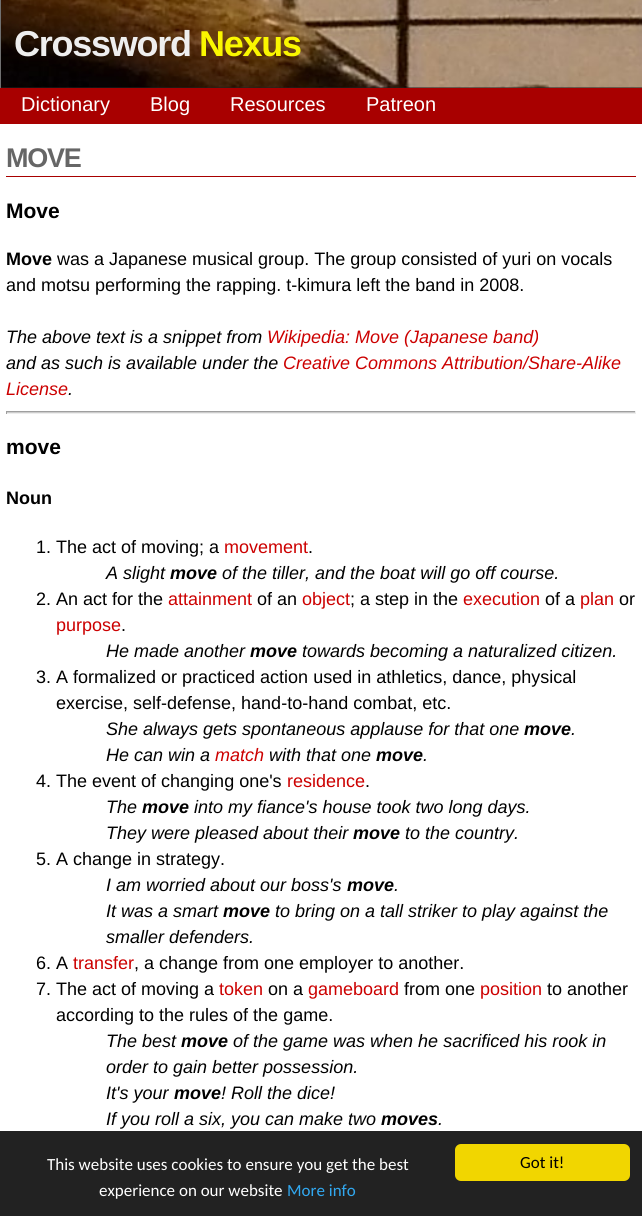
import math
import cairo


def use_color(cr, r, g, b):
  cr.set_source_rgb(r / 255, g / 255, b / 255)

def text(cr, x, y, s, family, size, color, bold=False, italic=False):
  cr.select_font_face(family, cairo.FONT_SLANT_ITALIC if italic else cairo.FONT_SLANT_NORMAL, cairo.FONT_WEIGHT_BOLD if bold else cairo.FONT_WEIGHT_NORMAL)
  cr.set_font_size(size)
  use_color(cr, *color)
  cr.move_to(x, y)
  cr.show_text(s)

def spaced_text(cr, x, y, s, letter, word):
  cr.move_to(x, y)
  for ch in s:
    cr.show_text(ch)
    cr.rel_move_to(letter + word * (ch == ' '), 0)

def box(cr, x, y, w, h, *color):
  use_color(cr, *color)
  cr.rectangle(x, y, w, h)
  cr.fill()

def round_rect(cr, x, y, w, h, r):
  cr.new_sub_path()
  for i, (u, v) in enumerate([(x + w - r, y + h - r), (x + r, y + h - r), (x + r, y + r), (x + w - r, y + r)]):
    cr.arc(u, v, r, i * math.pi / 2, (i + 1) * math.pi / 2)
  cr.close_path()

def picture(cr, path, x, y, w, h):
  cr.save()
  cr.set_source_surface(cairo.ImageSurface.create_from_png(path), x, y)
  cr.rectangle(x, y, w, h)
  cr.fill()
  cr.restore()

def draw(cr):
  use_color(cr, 34, 34, 34)
  cr.paint()
  picture(cr, "img_01.png", 1, 0, 641, 88)
  box(cr, 0, 0, 1, 88, 112, 112, 112)
  box(cr, 0, 88, 642, 36, 168, 0, 0)
  box(cr, 0, 124, 642, 1007, 255, 255, 255)
  box(cr, 6, 176, 630, 1, 168, 0, 0)
  box(cr, 6, 412, 630, 1, 204, 204, 204)
  box(cr, 6, 411, 630, 1, 159, 159, 159)
  box(cr, 635, 411, 1, 3, 238, 238, 238)
  box(cr, 6, 413, 630, 1, 238, 238, 238)
  box(cr, 6, 411, 1, 3, 159, 159, 159)
  use_color(cr, 241, 214, 0)
  round_rect(cr, 455, 1144, 175, 37, 6)
  cr.fill()
  cr.select_font_face("Liberation Sans", cairo.FONT_SLANT_NORMAL, cairo.FONT_WEIGHT_BOLD)
  cr.set_font_size(36)
  use_color(cr, 238, 238, 238)
  spaced_text(cr, 14, 56, "Crossword", -1.25, 0)
  use_color(cr, 250, 247, 0)
  spaced_text(cr, 199, 56, "Nexus", -1.25, 0)
  text(cr, 21, 111, "Dictionary", "Liberation Sans", 20, (255, 255, 255))
  text(cr, 150, 111, "Blog", "Liberation Sans", 20, (255, 255, 255))
  text(cr, 230, 111, "Resources", "Liberation Sans", 20, (255, 255, 255))
  text(cr, 366, 111, "Patreon", "Liberation Sans", 20, (255, 255, 255))
  cr.select_font_face("Liberation Sans", cairo.FONT_SLANT_NORMAL, cairo.FONT_WEIGHT_BOLD)
  cr.set_font_size(27)
  use_color(cr, 102, 102, 102)
  spaced_text(cr, 6, 167, "MOVE", -1.25, 0)
  text(cr, 6, 218, "Move", "Liberation Sans", 21, (0, 0, 0), bold=True)
  text(cr, 6, 265, "Move", "Liberation Sans", 18, (0, 0, 0), bold=True)
  text(cr, 57, 265, "was a Japanese musical group. The group consisted of yuri on vocals", "Liberation Sans", 18, (0, 0, 0))
  text(cr, 6, 291, "and motsu performing the rapping. t-kimura left the band in 2008.", "Liberation Sans", 18, (0, 0, 0))
  text(cr, 6, 343, "The above text is a snippet from", "Liberation Sans", 18, (0, 0, 0), italic=True)
  text(cr, 267, 343, "Wikipedia: Move (Japanese band)", "Liberation Sans", 18, (204, 0, 0), italic=True)
  text(cr, 6, 369, "and as such is available under the", "Liberation Sans", 18, (0, 0, 0), italic=True)
  text(cr, 283, 369, "Creative Commons Attribution/Share-Alike", "Liberation Sans", 18, (204, 0, 0), italic=True)
  text(cr, 6, 395, "License", "Liberation Sans", 18, (204, 0, 0), italic=True)
  text(cr, 68, 395, ".", "Liberation Sans", 18, (0, 0, 0), italic=True)
  text(cr, 6, 454, "move", "Liberation Sans", 21, (0, 0, 0), bold=True)
  text(cr, 6, 504, "Noun", "Liberation Sans", 18, (0, 0, 0), bold=True)
  text(cr, 36, 553, "1. The act of moving; a", "Liberation Sans", 18, (0, 0, 0))
  text(cr, 224, 553, "movement", "Liberation Sans", 18, (204, 0, 0))
  text(cr, 308, 553, ".", "Liberation Sans", 18, (0, 0, 0))
  text(cr, 106, 579, "A slight", "Liberation Sans", 18, (0, 0, 0), italic=True)
  text(cr, 170, 579, "move", "Liberation Sans", 18, (0, 0, 0), bold=True, italic=True)
  text(cr, 222, 579, "of the tiller, and the boat will go off course.", "Liberation Sans", 18, (0, 0, 0), italic=True)
  text(cr, 36, 605, "2. An act for the", "Liberation Sans", 18, (0, 0, 0))
  text(cr, 168, 605, "attainment", "Liberation Sans", 18, (204, 0, 0))
  text(cr, 257, 605, "of an", "Liberation Sans", 18, (0, 0, 0))
  text(cr, 302, 605, "object", "Liberation Sans", 18, (204, 0, 0))
  text(cr, 350, 605, "; a step in the", "Liberation Sans", 18, (0, 0, 0))
  text(cr, 463, 605, "execution", "Liberation Sans", 18, (204, 0, 0))
  text(cr, 545, 605, "of a", "Liberation Sans", 18, (0, 0, 0))
  text(cr, 580, 605, "plan", "Liberation Sans", 18, (204, 0, 0))
  text(cr, 619, 605, "or", "Liberation Sans", 18, (0, 0, 0))
  text(cr, 56, 631, "purpose", "Liberation Sans", 18, (204, 0, 0))
  text(cr, 121, 631, ".", "Liberation Sans", 18, (0, 0, 0))
  text(cr, 106, 657, "He made another", "Liberation Sans", 18, (0, 0, 0), italic=True)
  text(cr, 250, 657, "move", "Liberation Sans", 18, (0, 0, 0), bold=True, italic=True)
  text(cr, 302, 657, "towards becoming a naturalized citizen.", "Liberation Sans", 18, (0, 0, 0), italic=True)
  text(cr, 36, 683, "3. A formalized or practiced action used in athletics, dance, physical", "Liberation Sans", 18, (0, 0, 0))
  text(cr, 56, 709, "exercise, self-defense, hand-to-hand combat, etc.", "Liberation Sans", 18, (0, 0, 0))
  text(cr, 106, 735, "She always gets spontaneous applause for that one", "Liberation Sans", 18, (0, 0, 0), italic=True)
  text(cr, 524, 735, "move", "Liberation Sans", 18, (0, 0, 0), bold=True, italic=True)
  text(cr, 571, 735, ".", "Liberation Sans", 18, (0, 0, 0), italic=True)
  text(cr, 106, 761, "He can win a", "Liberation Sans", 18, (0, 0, 0), italic=True)
  text(cr, 215, 761, "match", "Liberation Sans", 18, (204, 0, 0), italic=True)
  text(cr, 269, 761, "with that one", "Liberation Sans", 18, (0, 0, 0), italic=True)
  text(cr, 376, 761, "move", "Liberation Sans", 18, (0, 0, 0), bold=True, italic=True)
  text(cr, 423, 761, ".", "Liberation Sans", 18, (0, 0, 0), italic=True)
  text(cr, 36, 787, "4. The event of changing one's", "Liberation Sans", 18, (0, 0, 0))
  text(cr, 287, 787, "residence", "Liberation Sans", 18, (204, 0, 0))
  text(cr, 365, 787, ".", "Liberation Sans", 18, (0, 0, 0))
  text(cr, 106, 813, "The", "Liberation Sans", 18, (0, 0, 0), italic=True)
  text(cr, 142, 813, "move", "Liberation Sans", 18, (0, 0, 0), bold=True, italic=True)
  text(cr, 194, 813, "into my fiance's house took two long days.", "Liberation Sans", 18, (0, 0, 0), italic=True)
  text(cr, 106, 839, "They were pleased about their", "Liberation Sans", 18, (0, 0, 0), italic=True)
  text(cr, 353, 839, "move", "Liberation Sans", 18, (0, 0, 0), bold=True, italic=True)
  text(cr, 405, 839, "to the country.", "Liberation Sans", 18, (0, 0, 0), italic=True)
  text(cr, 36, 865, "5. A change in strategy.", "Liberation Sans", 18, (0, 0, 0))
  text(cr, 106, 891, "I am worried about our boss's", "Liberation Sans", 18, (0, 0, 0), italic=True)
  text(cr, 347, 891, "move", "Liberation Sans", 18, (0, 0, 0), bold=True, italic=True)
  text(cr, 394, 891, ".", "Liberation Sans", 18, (0, 0, 0), italic=True)
  text(cr, 106, 917, "It was a smart", "Liberation Sans", 18, (0, 0, 0), italic=True)
  text(cr, 223, 917, "move", "Liberation Sans", 18, (0, 0, 0), bold=True, italic=True)
  text(cr, 275, 917, "to bring on a tall striker to play against the", "Liberation Sans", 18, (0, 0, 0), italic=True)
  text(cr, 106, 943, "smaller defenders.", "Liberation Sans", 18, (0, 0, 0), italic=True)
  text(cr, 36, 969, "6. A", "Liberation Sans", 18, (0, 0, 0))
  text(cr, 73, 969, "transfer", "Liberation Sans", 18, (204, 0, 0))
  text(cr, 134, 969, ", a change from one employer to another.", "Liberation Sans", 18, (0, 0, 0))
  text(cr, 36, 995, "7. The act of moving a", "Liberation Sans", 18, (0, 0, 0))
  text(cr, 219, 995, "token", "Liberation Sans", 18, (204, 0, 0))
  text(cr, 268, 995, "on a", "Liberation Sans", 18, (0, 0, 0))
  text(cr, 308, 995, "gameboard", "Liberation Sans", 18, (204, 0, 0))
  text(cr, 404, 995, "from one", "Liberation Sans", 18, (0, 0, 0))
  text(cr, 480, 995, "position", "Liberation Sans", 18, (204, 0, 0))
  text(cr, 547, 995, "to another", "Liberation Sans", 18, (0, 0, 0))
  text(cr, 56, 1021, "according to the rules of the game.", "Liberation Sans", 18, (0, 0, 0))
  text(cr, 106, 1047, "The best", "Liberation Sans", 18, (0, 0, 0), italic=True)
  text(cr, 181, 1047, "move", "Liberation Sans", 18, (0, 0, 0), bold=True, italic=True)
  text(cr, 233, 1047, "of the game was when he sacrificed his rook in", "Liberation Sans", 18, (0, 0, 0), italic=True)
  text(cr, 106, 1073, "order to gain better possession.", "Liberation Sans", 18, (0, 0, 0), italic=True)
  text(cr, 106, 1099, "It's your", "Liberation Sans", 18, (0, 0, 0), italic=True)
  text(cr, 174, 1099, "move", "Liberation Sans", 18, (0, 0, 0), bold=True, italic=True)
  text(cr, 221, 1099, "! Roll the dice!", "Liberation Sans", 18, (0, 0, 0), italic=True)
  text(cr, 106, 1125, "If you roll a six, you can make two", "Liberation Sans", 18, (0, 0, 0), italic=True)
  text(cr, 381, 1125, "moves", "Liberation Sans", 18, (0, 0, 0), bold=True, italic=True)
  text(cr, 438, 1125, ".", "Liberation Sans", 18, (0, 0, 0), italic=True)
  text(cr, 47, 1170, "This website uses cookies to ensure you get the best", "Carlito", 17, (255, 255, 255))
  text(cr, 99, 1196, "experience on our website", "Carlito", 17, (255, 255, 255))
  text(cr, 287, 1196, "More info", "Carlito", 17, (49, 168, 240))
  text(cr, 520, 1168, "Got it!", "Carlito", 17, (0, 0, 0))


surface = cairo.ImageSurface(cairo.FORMAT_RGB24, 642, 1216)
cr = cairo.Context(surface)
options = cairo.FontOptions()
options.set_hint_metrics(cairo.HINT_METRICS_OFF)
options.set_hint_style(cairo.HINT_STYLE_NONE)
cr.set_font_options(options)
cr.set_miter_limit(4)
draw(cr)
surface.write_to_png("out.png")
